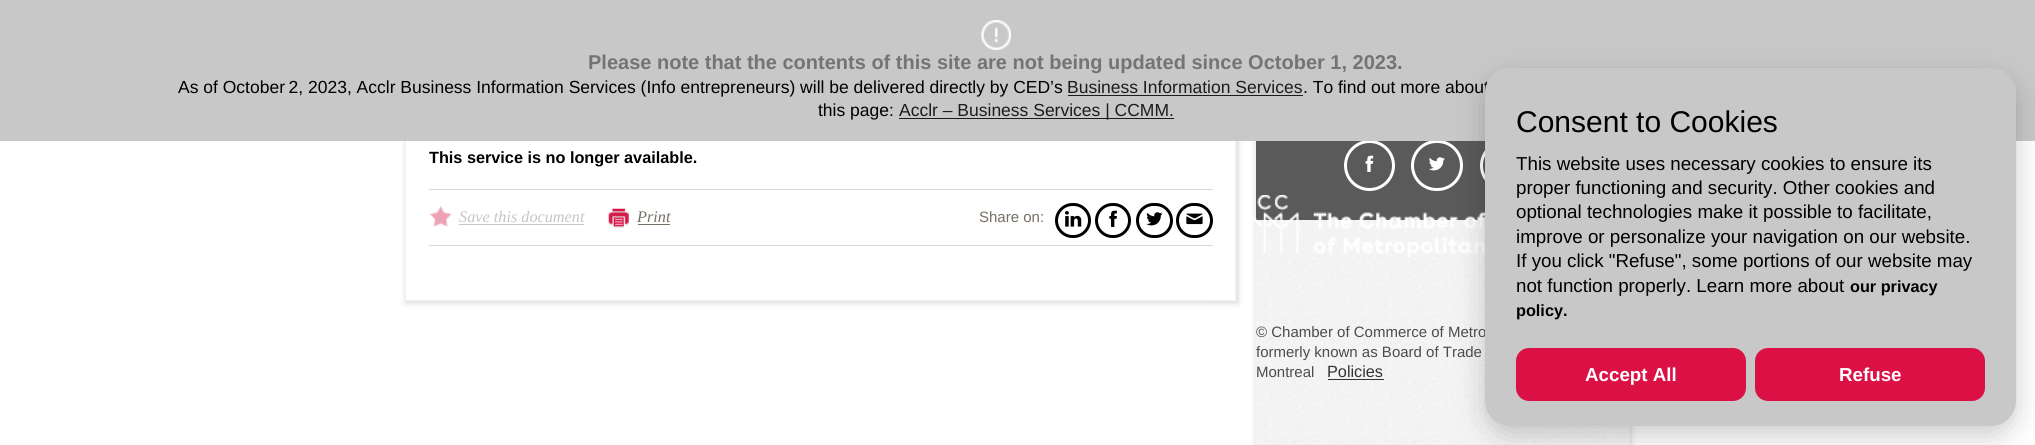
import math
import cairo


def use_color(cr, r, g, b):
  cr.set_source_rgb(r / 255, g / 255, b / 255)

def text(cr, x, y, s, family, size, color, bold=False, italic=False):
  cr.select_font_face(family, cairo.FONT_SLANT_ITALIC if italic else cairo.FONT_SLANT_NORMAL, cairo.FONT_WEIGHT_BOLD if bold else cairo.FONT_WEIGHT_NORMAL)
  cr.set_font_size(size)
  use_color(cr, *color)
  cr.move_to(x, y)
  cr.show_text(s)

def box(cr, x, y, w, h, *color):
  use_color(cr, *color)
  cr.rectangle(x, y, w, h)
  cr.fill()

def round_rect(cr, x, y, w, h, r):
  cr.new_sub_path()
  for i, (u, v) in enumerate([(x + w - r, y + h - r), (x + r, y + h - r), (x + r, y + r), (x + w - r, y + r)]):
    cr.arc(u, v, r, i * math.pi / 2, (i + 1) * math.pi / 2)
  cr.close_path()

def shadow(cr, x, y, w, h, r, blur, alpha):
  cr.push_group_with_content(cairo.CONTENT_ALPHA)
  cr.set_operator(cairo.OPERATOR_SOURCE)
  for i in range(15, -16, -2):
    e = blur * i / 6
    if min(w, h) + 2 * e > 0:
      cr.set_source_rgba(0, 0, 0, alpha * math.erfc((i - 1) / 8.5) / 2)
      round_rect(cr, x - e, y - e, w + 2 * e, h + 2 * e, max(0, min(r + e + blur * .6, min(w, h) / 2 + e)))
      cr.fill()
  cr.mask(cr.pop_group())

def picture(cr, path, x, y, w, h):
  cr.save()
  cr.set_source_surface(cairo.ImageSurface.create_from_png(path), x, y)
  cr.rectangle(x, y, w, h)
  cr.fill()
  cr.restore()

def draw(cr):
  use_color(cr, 255, 255, 255)
  cr.paint()
  cr.save()
  cr.set_fill_rule(cairo.FILL_RULE_EVEN_ODD)
  cr.new_path()
  cr.move_to(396, 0)
  cr.line_to(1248, 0)
  cr.line_to(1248, 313)
  cr.line_to(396, 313)
  cr.close_path()
  cr.move_to(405, -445)
  cr.line_to(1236, -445)
  cr.line_to(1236, 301)
  cr.line_to(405, 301)
  cr.close_path()
  cr.clip()
  use_color(cr, 213, 213, 212)
  shadow(cr, 406, -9, 832, 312, 0, 3, 1)
  cr.restore()
  picture(cr, "img_02.png", 408, 141, 829, 161)
  cr.rectangle(405.5, -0.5, 830, 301)
  use_color(cr, 240, 240, 240)
  cr.set_line_width(1)
  cr.stroke()
  use_color(cr, 213, 213, 212)
  shadow(cr, 1256, -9, 375, 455, 0, 3, 1)
  picture(cr, "img_09.png", 1256, 220, 373, 224)
  cr.rectangle(1255.5, -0.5, 374, 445)
  use_color(cr, 240, 240, 240)
  cr.stroke()
  box(cr, 1256, 141, 229, 79, 90, 90, 90)
  cr.arc(1369.5, 165.5, 24, 0, 2 * math.pi)
  use_color(cr, 255, 255, 255)
  cr.set_line_width(3)
  cr.stroke()
  round_rect(cr, 1412.5, 141.5, 49, 48, 24)
  cr.stroke()
  cr.arc(1505.5, 165.5, 24, 0, 2 * math.pi)
  cr.stroke()
  box(cr, 0, 0, 2035, 141, 200, 200, 200)
  picture(cr, "img_01.png", 981, 20, 30, 30)
  box(cr, 1068, 95, 235, 1, 28, 28, 28)
  box(cr, 899, 118, 275, 1, 28, 28, 28)
  box(cr, 429, 189, 784, 1, 216, 216, 216)
  box(cr, 429, 245, 784, 1, 216, 216, 216)
  picture(cr, "img_03.png", 430, 206, 22, 21)
  box(cr, 459, 224, 125, 1, 201, 197, 193)
  picture(cr, "img_04.png", 608, 208, 21, 20)
  box(cr, 638, 224, 32, 1, 119, 111, 101)
  round_rect(cr, 1056.5, 204.5, 33, 32, 16)
  use_color(cr, 0, 0, 0)
  cr.stroke()
  picture(cr, "img_05.png", 1065, 211, 17, 16)
  round_rect(cr, 1096.5, 204.5, 33, 32, 16)
  cr.stroke()
  picture(cr, "img_06.png", 1109, 210, 8, 17)
  round_rect(cr, 1137.5, 204.5, 34, 32, 16)
  cr.stroke()
  picture(cr, "img_07.png", 1146, 212, 17, 14)
  round_rect(cr, 1177.5, 204.5, 34, 32, 16)
  cr.stroke()
  picture(cr, "img_08.png", 1186, 213, 17, 12)
  picture(cr, "img_10.png", 1365, 155, 9, 17)
  picture(cr, "img_11.png", 1429, 157, 16, 14)
  picture(cr, "img_12.png", 1252, 195, 233, 63)
  use_color(cr, 2, 2, 3)
  shadow(cr, 1485, 78, 531, 358, 25, 14, 0.2)
  box(cr, 1328, 379, 56, 1, 51, 51, 51)
  text(cr, 588, 69, "Please note that the contents of this site are not being updated since October 1, 2023.", "Liberation Sans", 20, (116, 116, 116), bold=True)
  text(cr, 178, 93, "As of October 2, 2023, Acclr Business Information Services (Info entrepreneurs) will be delivered directly by CED’s", "Liberation Sans", 17.5, (0, 0, 0))
  text(cr, 1067, 93, "Business Information Services", "Liberation Sans", 17.5, (28, 28, 28))
  text(cr, 1303, 93, ". To find out more about", "Liberation Sans", 17.5, (0, 0, 0))
  text(cr, 818, 116, "this page:", "Liberation Sans", 17.5, (0, 0, 0))
  text(cr, 899, 116, "Acclr – Business Services | CCMM.", "Liberation Sans", 17.5, (28, 28, 28))
  text(cr, 429, 163, "This service is no longer available.", "Liberation Sans", 16.25, (0, 0, 0), bold=True)
  text(cr, 459, 222, "Save this document", "Liberation Serif", 16.25, (201, 197, 193), italic=True)
  text(cr, 637, 222, "Print", "Liberation Serif", 16.25, (119, 111, 101), italic=True)
  text(cr, 979, 222, "Share on:", "Liberation Sans", 15, (119, 111, 101))
  text(cr, 1256, 337, "© Chamber of Commerce of Metro", "Liberation Sans", 15, (76, 76, 76))
  use_color(cr, 200, 200, 200)
  round_rect(cr, 1485, 68, 531, 358, 25)
  cr.fill()
  use_color(cr, 219, 16, 69)
  round_rect(cr, 1755, 348, 230, 53, 13)
  cr.fill()
  text(cr, 1839, 381, "Refuse", "Liberation Sans", 18.75, (255, 255, 255), bold=True)
  use_color(cr, 219, 16, 69)
  round_rect(cr, 1516, 348, 230, 53, 13)
  cr.fill()
  text(cr, 1585, 381, "Accept All", "Liberation Sans", 18.75, (255, 255, 255), bold=True)
  text(cr, 1516, 316, "policy.", "Liberation Sans", 16.25, (0, 0, 0), bold=True)
  text(cr, 1850, 292, "our privacy", "Liberation Sans", 16.25, (0, 0, 0), bold=True)
  text(cr, 1516, 292, "not function properly. Learn more about", "Liberation Sans", 18.75, (0, 0, 0))
  text(cr, 1516, 267, "If you click \"Refuse\", some portions of our website may", "Liberation Sans", 18.75, (0, 0, 0))
  text(cr, 1516, 243, "improve or personalize your navigation on our website.", "Liberation Sans", 18.75, (0, 0, 0))
  text(cr, 1516, 218, "optional technologies make it possible to facilitate,", "Liberation Sans", 18.75, (0, 0, 0))
  text(cr, 1516, 194, "proper functioning and security. Other cookies and", "Liberation Sans", 18.75, (0, 0, 0))
  text(cr, 1516, 170, "This website uses necessary cookies to ensure its", "Liberation Sans", 18.75, (0, 0, 0))
  text(cr, 1516, 132, "Consent to Cookies", "Liberation Sans", 30, (0, 0, 0))
  text(cr, 1256, 357, "formerly known as Board of Trade", "Liberation Sans", 15, (76, 76, 76))
  text(cr, 1256, 377, "Montreal", "Liberation Sans", 15, (76, 76, 76))
  text(cr, 1327, 377, "Policies", "Liberation Sans", 16.25, (51, 51, 51))


surface = cairo.ImageSurface(cairo.FORMAT_RGB24, 2035, 445)
cr = cairo.Context(surface)
options = cairo.FontOptions()
options.set_hint_metrics(cairo.HINT_METRICS_OFF)
options.set_hint_style(cairo.HINT_STYLE_NONE)
cr.set_font_options(options)
cr.set_miter_limit(4)
draw(cr)
surface.write_to_png("out.png")
